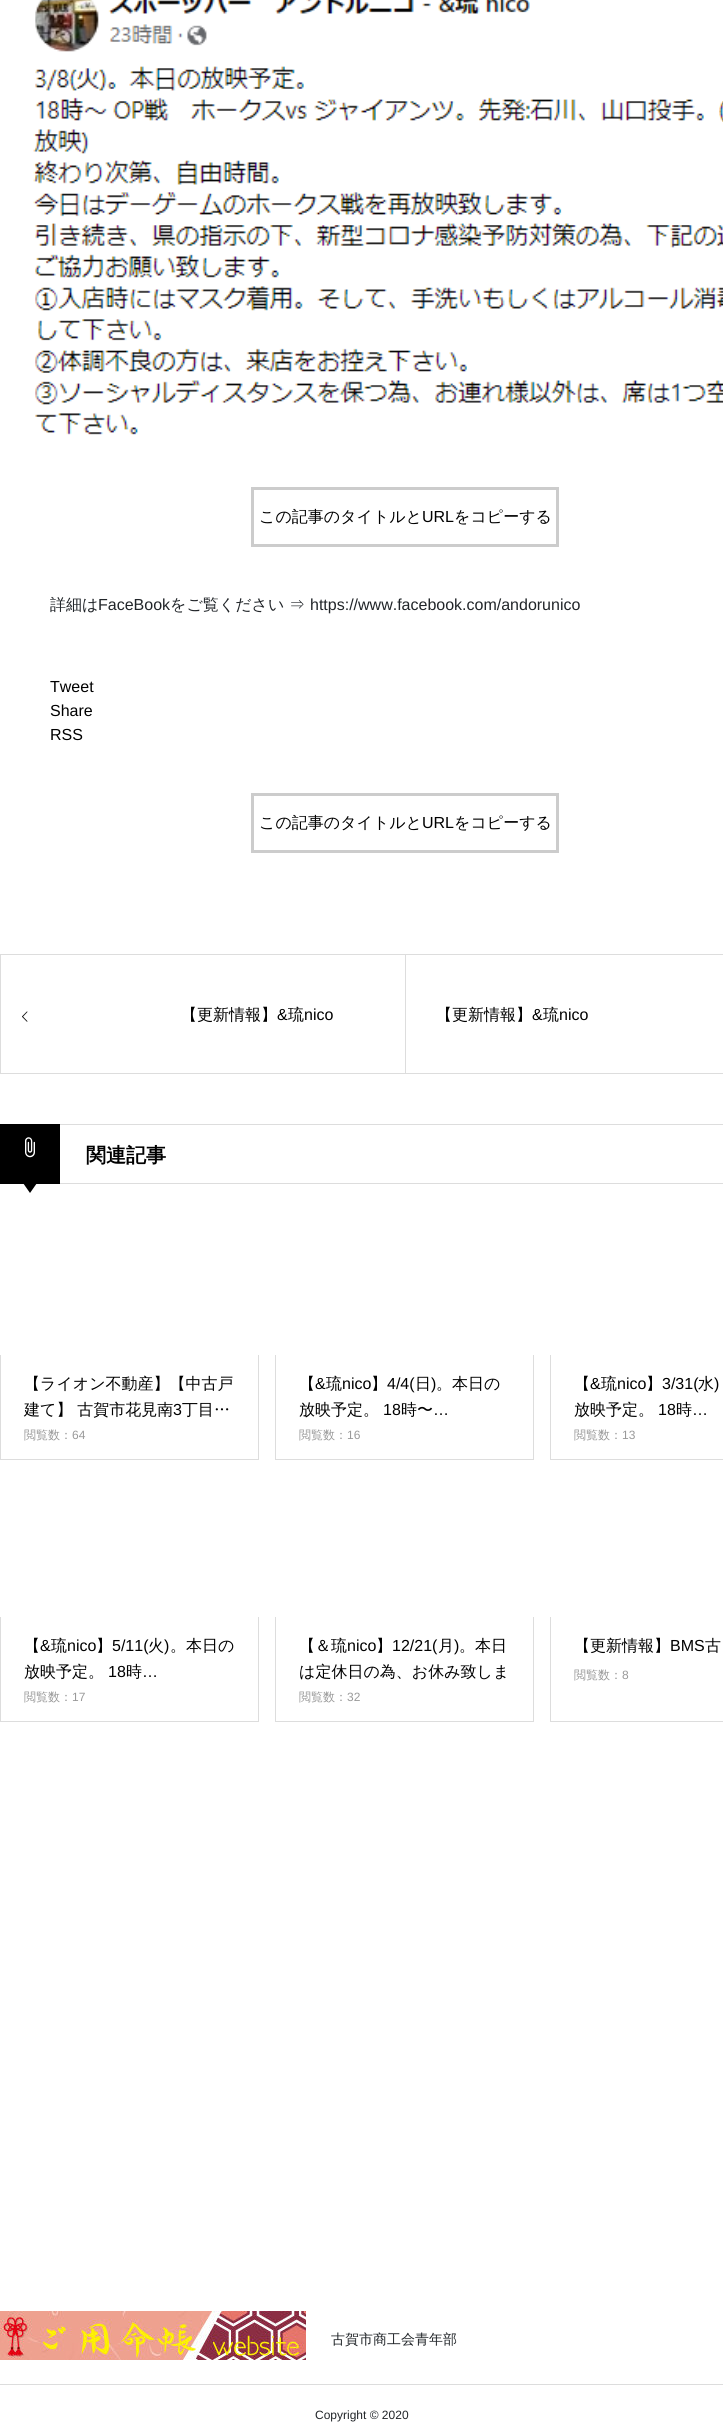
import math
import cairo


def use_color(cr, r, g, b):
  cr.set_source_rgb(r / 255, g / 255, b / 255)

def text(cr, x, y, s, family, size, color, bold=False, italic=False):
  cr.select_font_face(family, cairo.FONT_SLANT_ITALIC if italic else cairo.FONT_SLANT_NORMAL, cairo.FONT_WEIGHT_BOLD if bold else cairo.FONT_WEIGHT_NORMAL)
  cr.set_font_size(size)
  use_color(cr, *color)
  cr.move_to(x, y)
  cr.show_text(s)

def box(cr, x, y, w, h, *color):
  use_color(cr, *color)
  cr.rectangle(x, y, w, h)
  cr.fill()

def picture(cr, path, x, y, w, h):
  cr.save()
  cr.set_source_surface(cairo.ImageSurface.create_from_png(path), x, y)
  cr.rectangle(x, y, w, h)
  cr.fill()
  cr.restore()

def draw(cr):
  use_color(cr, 255, 255, 255)
  cr.paint()
  picture(cr, "img_01.png", 33, 0, 690, 435)
  cr.rectangle(252.5, 488.5, 305, 57)
  use_color(cr, 204, 204, 204)
  cr.set_line_width(3)
  cr.stroke()
  cr.rectangle(252.5, 794.5, 305, 57)
  cr.stroke()
  box(cr, 0, 954, 405, 1, 221, 221, 221)
  box(cr, 0, 1073, 405, 1, 221, 221, 221)
  box(cr, 0, 954, 1, 120, 221, 221, 221)
  picture(cr, "img_02.png", 22, 1011, 6, 11)
  cr.rectangle(405.5, 954.5, 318, 119)
  cr.set_line_width(1)
  cr.stroke()
  cr.rectangle(0.5, 1124.5, 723, 59)
  cr.stroke()
  box(cr, 0, 1124, 60, 60, 0, 0, 0)
  picture(cr, "img_03.png", 25, 1137, 10, 21)
  cr.new_path()
  cr.move_to(23, 1183)
  cr.line_to(37, 1183)
  cr.line_to(30, 1193)
  cr.close_path()
  cr.fill()
  box(cr, 258, 1355, 1, 105, 221, 221, 221)
  box(cr, 0, 1459, 259, 1, 221, 221, 221)
  box(cr, 0, 1355, 1, 105, 221, 221, 221)
  box(cr, 533, 1355, 1, 105, 221, 221, 221)
  box(cr, 275, 1459, 259, 1, 221, 221, 221)
  box(cr, 275, 1355, 1, 105, 221, 221, 221)
  box(cr, 550, 1459, 173, 1, 221, 221, 221)
  box(cr, 550, 1355, 1, 105, 221, 221, 221)
  box(cr, 258, 1617, 1, 105, 221, 221, 221)
  box(cr, 0, 1721, 259, 1, 221, 221, 221)
  box(cr, 0, 1617, 1, 105, 221, 221, 221)
  box(cr, 533, 1617, 1, 105, 221, 221, 221)
  box(cr, 275, 1721, 259, 1, 221, 221, 221)
  box(cr, 275, 1617, 1, 105, 221, 221, 221)
  box(cr, 550, 1721, 173, 1, 221, 221, 221)
  box(cr, 550, 1617, 1, 105, 221, 221, 221)
  picture(cr, "img_04.png", 0, 2311, 306, 49)
  box(cr, 0, 2384, 723, 1, 221, 221, 221)
  text(cr, 259, 522, "この記事のタイトルと", "WenQuanYi Zen Hei Medium", 16, (0, 0, 0))
  text(cr, 422, 522, "URL", "Liberation Sans", 16, (0, 0, 0))
  text(cr, 454, 522, "をコピーする", "WenQuanYi Zen Hei Medium", 16, (0, 0, 0))
  text(cr, 50, 610, "詳細は", "WenQuanYi Zen Hei Medium", 16, (33, 37, 41))
  text(cr, 98, 610, "FaceBook", "Liberation Sans", 16, (33, 37, 41))
  text(cr, 170, 610, "をご覧ください ⇒", "WenQuanYi Zen Hei Medium", 16, (33, 37, 41))
  text(cr, 310, 610, "https://www.facebook.com/andorunico", "Liberation Sans", 16, (33, 37, 41))
  text(cr, 50, 692, "Tweet", "Liberation Sans", 16, (0, 0, 0))
  text(cr, 50, 716, "Share", "Liberation Sans", 16, (0, 0, 0))
  text(cr, 50, 740, "RSS", "Liberation Sans", 16, (0, 0, 0))
  text(cr, 259, 828, "この記事のタイトルと", "WenQuanYi Zen Hei Medium", 16, (0, 0, 0))
  text(cr, 422, 828, "URL", "Liberation Sans", 16, (0, 0, 0))
  text(cr, 454, 828, "をコピーする", "WenQuanYi Zen Hei Medium", 16, (0, 0, 0))
  text(cr, 181, 1020, "【更新情報】", "WenQuanYi Zen Hei Medium", 16, (0, 0, 0))
  text(cr, 277, 1020, "&", "Liberation Sans", 16, (0, 0, 0))
  text(cr, 288, 1020, "琉", "WenQuanYi Zen Hei Medium", 16, (0, 0, 0))
  text(cr, 304, 1020, "nico", "Liberation Sans", 16, (0, 0, 0))
  text(cr, 436, 1020, "【更新情報】", "WenQuanYi Zen Hei Medium", 16, (0, 0, 0))
  text(cr, 532, 1020, "&", "Liberation Sans", 16, (0, 0, 0))
  text(cr, 543, 1020, "琉", "WenQuanYi Zen Hei Medium", 16, (0, 0, 0))
  text(cr, 559, 1020, "nico", "Liberation Sans", 16, (0, 0, 0))
  text(cr, 86, 1162, "関連記事", "WenQuanYi Zen Hei", 20, (0, 0, 0), bold=True)
  text(cr, 24, 1389, "【ライオン不動産】【中古戸", "WenQuanYi Zen Hei Medium", 16, (0, 0, 0))
  text(cr, 24, 1415, "建て】 古賀市花見南", "WenQuanYi Zen Hei Medium", 16, (0, 0, 0))
  text(cr, 173, 1415, "3", "Liberation Sans", 16, (0, 0, 0))
  text(cr, 182, 1415, "丁目…", "WenQuanYi Zen Hei Medium", 16, (0, 0, 0))
  text(cr, 24, 1439, "閲覧数：", "WenQuanYi Zen Hei Medium", 12, (153, 153, 153))
  text(cr, 72, 1439, "64", "Liberation Sans", 12, (153, 153, 153))
  text(cr, 299, 1389, "【", "WenQuanYi Zen Hei Medium", 16, (0, 0, 0))
  text(cr, 315, 1389, "&", "Liberation Sans", 16, (0, 0, 0))
  text(cr, 326, 1389, "琉", "WenQuanYi Zen Hei Medium", 16, (0, 0, 0))
  text(cr, 342, 1389, "nico", "Liberation Sans", 16, (0, 0, 0))
  text(cr, 371, 1389, "】", "WenQuanYi Zen Hei Medium", 16, (0, 0, 0))
  text(cr, 387, 1389, "4/4(", "Liberation Sans", 16, (0, 0, 0))
  text(cr, 415, 1389, "日", "WenQuanYi Zen Hei Medium", 16, (0, 0, 0))
  text(cr, 431, 1389, ")", "Liberation Sans", 16, (0, 0, 0))
  text(cr, 436, 1389, "。本日の", "WenQuanYi Zen Hei Medium", 16, (0, 0, 0))
  text(cr, 299, 1415, "放映予定。", "WenQuanYi Zen Hei Medium", 16, (0, 0, 0))
  text(cr, 383, 1415, "18", "Liberation Sans", 16, (0, 0, 0))
  text(cr, 401, 1415, "時〜", "WenQuanYi Zen Hei Medium", 16, (0, 0, 0))
  text(cr, 433, 1415, "…", "Liberation Sans", 16, (0, 0, 0))
  text(cr, 299, 1439, "閲覧数：", "WenQuanYi Zen Hei Medium", 12, (153, 153, 153))
  text(cr, 347, 1439, "16", "Liberation Sans", 12, (153, 153, 153))
  text(cr, 574, 1389, "【", "WenQuanYi Zen Hei Medium", 16, (0, 0, 0))
  text(cr, 590, 1389, "&", "Liberation Sans", 16, (0, 0, 0))
  text(cr, 601, 1389, "琉", "WenQuanYi Zen Hei Medium", 16, (0, 0, 0))
  text(cr, 617, 1389, "nico", "Liberation Sans", 16, (0, 0, 0))
  text(cr, 646, 1389, "】", "WenQuanYi Zen Hei Medium", 16, (0, 0, 0))
  text(cr, 662, 1389, "3/31(", "Liberation Sans", 16, (0, 0, 0))
  text(cr, 698, 1389, "水", "WenQuanYi Zen Hei Medium", 16, (0, 0, 0))
  text(cr, 714, 1389, ")", "Liberation Sans", 16, (0, 0, 0))
  text(cr, 574, 1415, "放映予定。", "WenQuanYi Zen Hei Medium", 16, (0, 0, 0))
  text(cr, 658, 1415, "18", "Liberation Sans", 16, (0, 0, 0))
  text(cr, 676, 1415, "時", "WenQuanYi Zen Hei Medium", 16, (0, 0, 0))
  text(cr, 692, 1415, "…", "Liberation Sans", 16, (0, 0, 0))
  text(cr, 574, 1439, "閲覧数：", "WenQuanYi Zen Hei Medium", 12, (153, 153, 153))
  text(cr, 622, 1439, "13", "Liberation Sans", 12, (153, 153, 153))
  text(cr, 24, 1651, "【", "WenQuanYi Zen Hei Medium", 16, (0, 0, 0))
  text(cr, 40, 1651, "&", "Liberation Sans", 16, (0, 0, 0))
  text(cr, 51, 1651, "琉", "WenQuanYi Zen Hei Medium", 16, (0, 0, 0))
  text(cr, 67, 1651, "nico", "Liberation Sans", 16, (0, 0, 0))
  text(cr, 96, 1651, "】", "WenQuanYi Zen Hei Medium", 16, (0, 0, 0))
  text(cr, 112, 1651, "5/11(", "Liberation Sans", 16, (0, 0, 0))
  text(cr, 148, 1651, "火", "WenQuanYi Zen Hei Medium", 16, (0, 0, 0))
  text(cr, 164, 1651, ")", "Liberation Sans", 16, (0, 0, 0))
  text(cr, 170, 1651, "。本日の", "WenQuanYi Zen Hei Medium", 16, (0, 0, 0))
  text(cr, 24, 1677, "放映予定。", "WenQuanYi Zen Hei Medium", 16, (0, 0, 0))
  text(cr, 108, 1677, "18", "Liberation Sans", 16, (0, 0, 0))
  text(cr, 126, 1677, "時", "WenQuanYi Zen Hei Medium", 16, (0, 0, 0))
  text(cr, 142, 1677, "…", "Liberation Sans", 16, (0, 0, 0))
  text(cr, 24, 1701, "閲覧数：", "WenQuanYi Zen Hei Medium", 12, (153, 153, 153))
  text(cr, 72, 1701, "17", "Liberation Sans", 12, (153, 153, 153))
  text(cr, 299, 1651, "【＆琉", "WenQuanYi Zen Hei Medium", 16, (0, 0, 0))
  text(cr, 347, 1651, "nico", "Liberation Sans", 16, (0, 0, 0))
  text(cr, 376, 1651, "】", "WenQuanYi Zen Hei Medium", 16, (0, 0, 0))
  text(cr, 392, 1651, "12/21(", "Liberation Sans", 16, (0, 0, 0))
  text(cr, 438, 1651, "月", "WenQuanYi Zen Hei Medium", 16, (0, 0, 0))
  text(cr, 454, 1651, ")", "Liberation Sans", 16, (0, 0, 0))
  text(cr, 459, 1651, "。本日", "WenQuanYi Zen Hei Medium", 16, (0, 0, 0))
  text(cr, 299, 1677, "は定休日の為、お休み致しま", "WenQuanYi Zen Hei Medium", 16, (0, 0, 0))
  text(cr, 299, 1701, "閲覧数：", "WenQuanYi Zen Hei Medium", 12, (153, 153, 153))
  text(cr, 347, 1701, "32", "Liberation Sans", 12, (153, 153, 153))
  text(cr, 574, 1651, "【更新情報】", "WenQuanYi Zen Hei Medium", 16, (0, 0, 0))
  text(cr, 670, 1651, "BMS", "Liberation Sans", 16, (0, 0, 0))
  text(cr, 705, 1651, "古", "WenQuanYi Zen Hei Medium", 16, (0, 0, 0))
  text(cr, 574, 1679, "閲覧数：", "WenQuanYi Zen Hei Medium", 12, (153, 153, 153))
  text(cr, 622, 1679, "8", "Liberation Sans", 12, (153, 153, 153))
  text(cr, 331, 2344, "古賀市商工会青年部", "WenQuanYi Zen Hei Medium", 14, (33, 37, 41))
  text(cr, 315, 2419, "Copyright © 2020", "Liberation Sans", 12, (33, 37, 41))


surface = cairo.ImageSurface(cairo.FORMAT_RGB24, 723, 2435)
cr = cairo.Context(surface)
options = cairo.FontOptions()
options.set_hint_metrics(cairo.HINT_METRICS_OFF)
options.set_hint_style(cairo.HINT_STYLE_NONE)
cr.set_font_options(options)
cr.set_miter_limit(4)
draw(cr)
surface.write_to_png("out.png")
